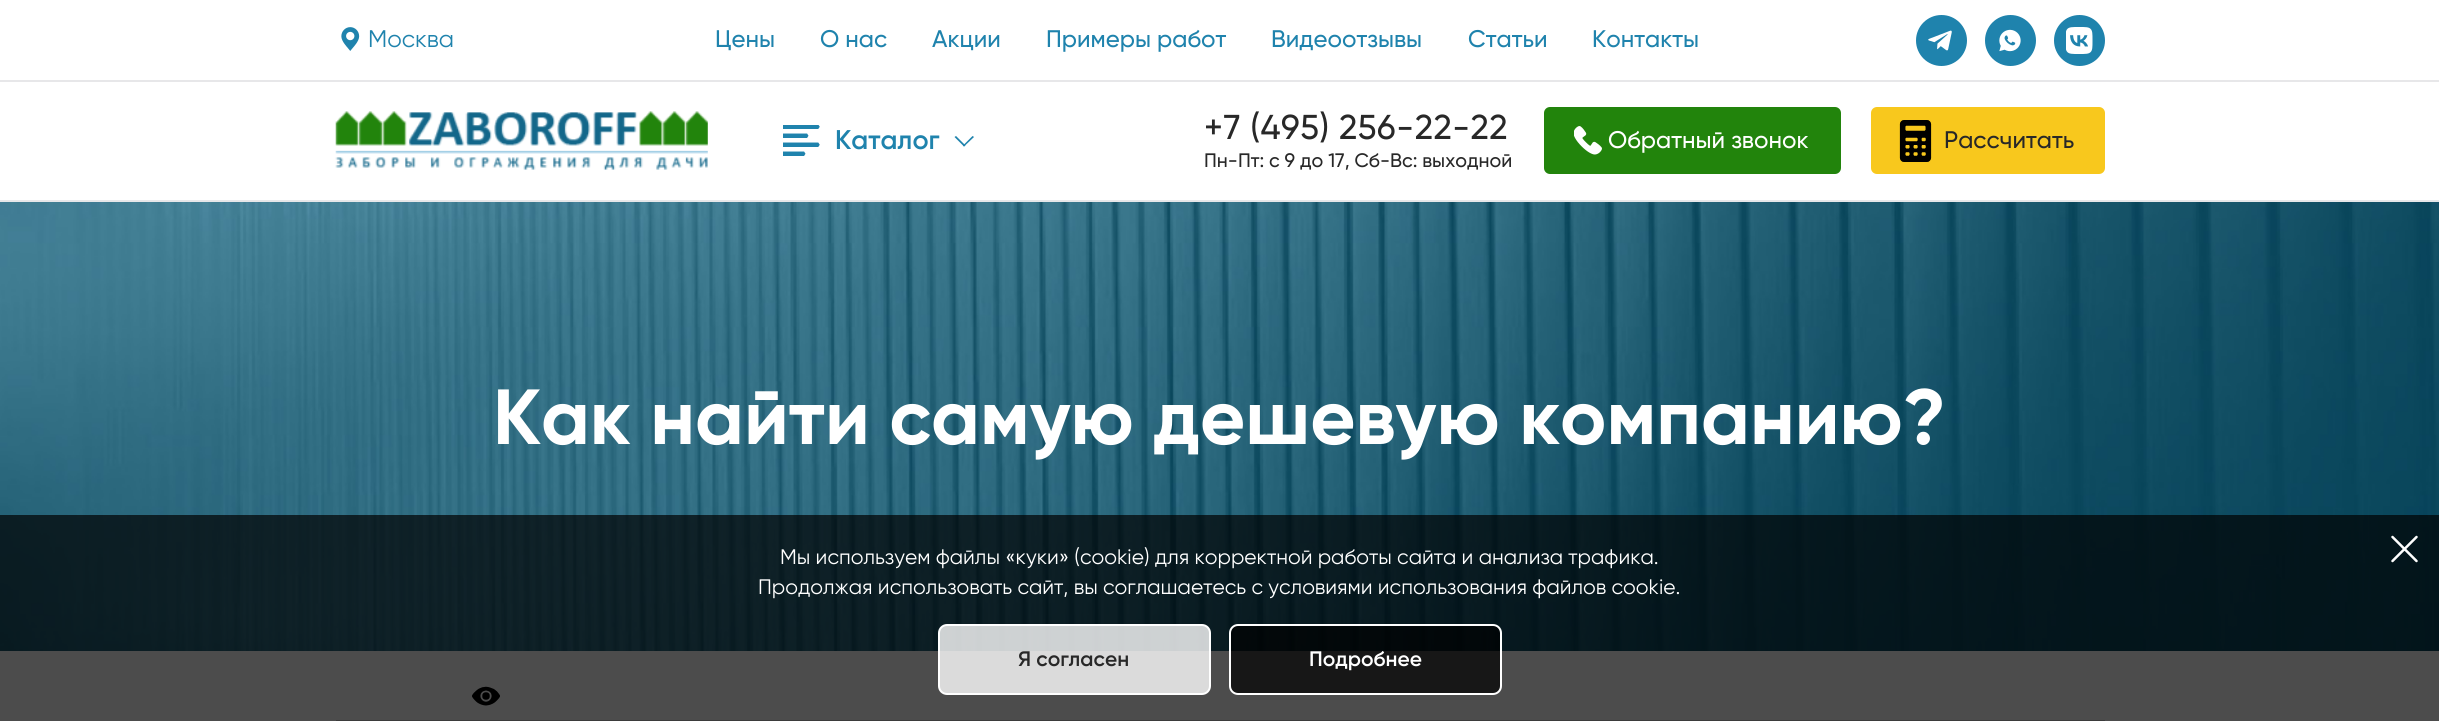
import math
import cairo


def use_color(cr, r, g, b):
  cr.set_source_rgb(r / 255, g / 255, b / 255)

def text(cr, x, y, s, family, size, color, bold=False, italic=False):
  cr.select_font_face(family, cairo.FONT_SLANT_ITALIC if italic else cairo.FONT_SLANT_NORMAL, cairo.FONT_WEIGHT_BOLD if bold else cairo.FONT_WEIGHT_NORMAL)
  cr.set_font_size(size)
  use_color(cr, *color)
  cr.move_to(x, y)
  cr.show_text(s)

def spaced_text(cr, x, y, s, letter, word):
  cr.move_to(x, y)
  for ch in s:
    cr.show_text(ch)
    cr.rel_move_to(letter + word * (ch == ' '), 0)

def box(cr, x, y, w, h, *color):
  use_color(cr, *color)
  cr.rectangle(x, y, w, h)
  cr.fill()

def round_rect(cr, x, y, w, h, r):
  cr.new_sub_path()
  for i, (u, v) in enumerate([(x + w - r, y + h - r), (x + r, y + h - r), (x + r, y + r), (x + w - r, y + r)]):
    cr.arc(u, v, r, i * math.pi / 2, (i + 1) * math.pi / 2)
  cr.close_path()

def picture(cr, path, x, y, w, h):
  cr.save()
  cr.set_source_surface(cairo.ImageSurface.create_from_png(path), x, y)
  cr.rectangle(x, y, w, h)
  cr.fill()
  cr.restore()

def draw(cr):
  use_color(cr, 255, 255, 255)
  cr.paint()
  box(cr, 0, 200, 2439, 2, 231, 231, 233)
  picture(cr, "img_01.png", 341, 27, 19, 24)
  use_color(cr, 31, 131, 173)
  cr.arc(1941.5, 40.5, 24.5, 0, 2 * math.pi)
  cr.fill_preserve()
  cr.stroke()
  picture(cr, "img_02.png", 1928, 30, 24, 21)
  cr.arc(2010.5, 40.5, 24.5, 0, 2 * math.pi)
  cr.fill_preserve()
  cr.stroke()
  picture(cr, "img_03.png", 1999, 29, 22, 23)
  cr.arc(2079.5, 40.5, 24.5, 0, 2 * math.pi)
  cr.fill_preserve()
  cr.stroke()
  picture(cr, "img_04.png", 2066, 27, 27, 27)
  box(cr, 0, 80, 2439, 2, 231, 231, 233)
  picture(cr, "img_05.png", 335, 111, 373, 59)
  picture(cr, "img_06.png", 783, 125, 37, 31)
  use_color(cr, 31, 131, 173)
  cr.new_path()
  cr.move_to(972.5, 136)
  cr.line_to(974, 137)
  cr.line_to(964, 146.5)
  cr.line_to(963, 145.5)
  cr.close_path()
  cr.fill()
  cr.new_path()
  cr.move_to(956, 136)
  cr.line_to(965.5, 145.5)
  cr.line_to(964, 146.5)
  cr.line_to(954.5, 137)
  cr.close_path()
  cr.fill()
  use_color(cr, 34, 132, 12)
  round_rect(cr, 1544, 107, 297, 67, 6)
  cr.fill()
  picture(cr, "img_07.png", 1574, 126, 28, 29)
  use_color(cr, 248, 200, 29)
  round_rect(cr, 1871, 107, 234, 67, 6)
  cr.fill()
  picture(cr, "img_08.png", 1899, 120, 33, 42)
  picture(cr, "img_09.png", 0, 202, 2439, 449)
  box(cr, 336, 720, 1769, 1, 198, 198, 198)
  picture(cr, "img_10.png", 472, 686, 28, 20)
  cr.set_source_rgba(0, 0, 0, 0.7)
  cr.rectangle(0, 515, 2439, 206)
  cr.fill()
  cr.new_path()
  cr.move_to(2416.5, 561)
  cr.line_to(2392.5, 537)
  cr.move_to(2416.5, 537)
  cr.line_to(2392.5, 561)
  use_color(cr, 255, 255, 255)
  cr.set_line_width(2.5)
  cr.set_line_cap(cairo.LINE_CAP_ROUND)
  cr.set_line_join(cairo.LINE_JOIN_ROUND)
  cr.stroke()
  cr.set_source_rgba(1, 1, 1, 0.8)
  round_rect(cr, 939, 625, 271, 69, 8)
  cr.fill_preserve()
  use_color(cr, 255, 255, 255)
  cr.set_line_width(2)
  cr.set_line_cap(cairo.LINE_CAP_BUTT)
  cr.set_line_join(cairo.LINE_JOIN_MITER)
  cr.stroke()
  cr.set_source_rgba(0, 0, 0, 0.7)
  round_rect(cr, 1230, 625, 271, 69, 8)
  cr.fill_preserve()
  use_color(cr, 255, 255, 255)
  cr.stroke()
  text(cr, 368, 47, "Москва", "Gilroy", 24, (31, 131, 173))
  text(cr, 715, 47, "Цены", "Gilroy Medium", 24, (31, 131, 173))
  text(cr, 820, 47, "О нас", "Gilroy Medium", 24, (31, 131, 173))
  text(cr, 932, 47, "Акции", "Gilroy Medium", 24, (31, 131, 173))
  text(cr, 1046, 47, "Примеры работ", "Gilroy Medium", 24, (31, 131, 173))
  text(cr, 1271, 47, "Видеоотзывы", "Gilroy Medium", 24, (31, 131, 173))
  text(cr, 1468, 47, "Статьи", "Gilroy Medium", 24, (31, 131, 173))
  text(cr, 1592, 47, "Контакты", "Gilroy Medium", 24, (31, 131, 173))
  text(cr, 835, 149, "Каталог", "Gilroy SemiBold", 27, (31, 131, 173))
  cr.select_font_face("Gilroy Medium")
  cr.set_font_size(34.5)
  use_color(cr, 40, 40, 40)
  spaced_text(cr, 1204, 139, "+7 (495) 256-22-22", 0.6, 0)
  text(cr, 1204, 167, "Пн-Пт: с 9 до 17, Сб-Вс: выходной", "Gilroy Medium", 19.5, (40, 40, 40))
  text(cr, 1608, 148, "Обратный звонок", "Gilroy Medium", 24, (255, 255, 255))
  text(cr, 1944, 148, "Рассчитать", "Gilroy Medium", 24, (40, 40, 40))
  text(cr, 493, 444, "Как найти самую дешевую компанию?", "Gilroy", 78, (255, 255, 255), bold=True)
  text(cr, 780, 564, "Мы используем файлы «куки» (cookie) для корректной работы сайта и анализа трафика.", "Gilroy", 21, (255, 255, 255))
  text(cr, 758, 594, "Продолжая использовать сайт, вы соглашаетесь с условиями использования файлов cookie.", "Gilroy", 21, (255, 255, 255))
  text(cr, 1018, 666, "Я согласен", "Gilroy SemiBold", 21, (40, 40, 40))
  text(cr, 1309, 666, "Подробнее", "Gilroy SemiBold", 21, (255, 255, 255))


surface = cairo.ImageSurface(cairo.FORMAT_RGB24, 2439, 721)
cr = cairo.Context(surface)
options = cairo.FontOptions()
options.set_hint_metrics(cairo.HINT_METRICS_OFF)
options.set_hint_style(cairo.HINT_STYLE_NONE)
cr.set_font_options(options)
cr.set_miter_limit(4)
draw(cr)
surface.write_to_png("out.png")
